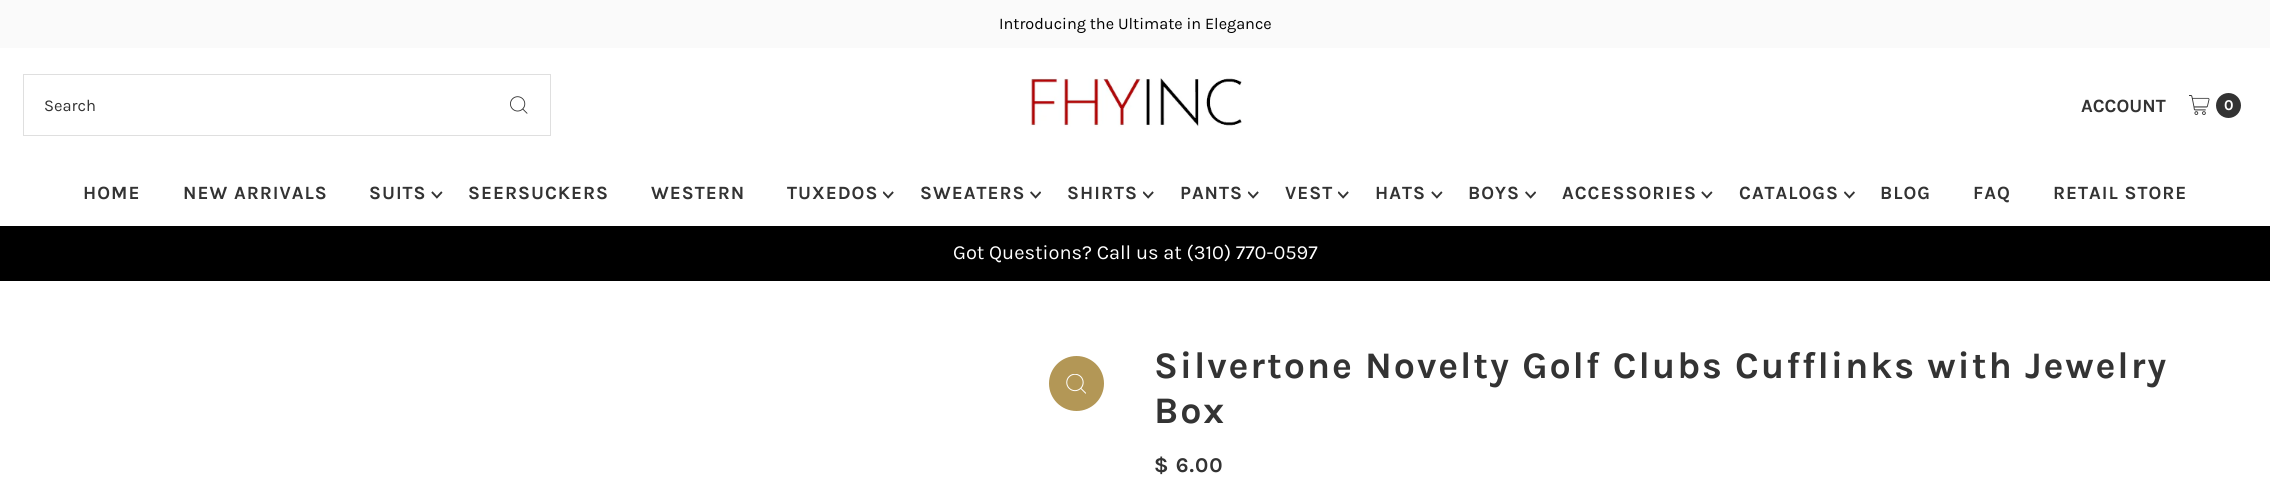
import math
import cairo


def use_color(cr, r, g, b):
  cr.set_source_rgb(r / 255, g / 255, b / 255)

def text(cr, x, y, s, family, size, color, bold=False, italic=False):
  cr.select_font_face(family, cairo.FONT_SLANT_ITALIC if italic else cairo.FONT_SLANT_NORMAL, cairo.FONT_WEIGHT_BOLD if bold else cairo.FONT_WEIGHT_NORMAL)
  cr.set_font_size(size)
  use_color(cr, *color)
  cr.move_to(x, y)
  cr.show_text(s)

def spaced_text(cr, x, y, s, letter, word):
  cr.move_to(x, y)
  for ch in s:
    cr.show_text(ch)
    cr.rel_move_to(letter + word * (ch == ' '), 0)

def box(cr, x, y, w, h, *color):
  use_color(cr, *color)
  cr.rectangle(x, y, w, h)
  cr.fill()

def picture(cr, path, x, y, w, h):
  cr.save()
  cr.set_source_surface(cairo.ImageSurface.create_from_png(path), x, y)
  cr.rectangle(x, y, w, h)
  cr.fill()
  cr.restore()

def draw(cr):
  use_color(cr, 255, 255, 255)
  cr.paint()
  box(cr, 0, 0, 2270, 48, 250, 250, 250)
  cr.rectangle(23.5, 74.5, 527, 61)
  use_color(cr, 223, 223, 223)
  cr.set_line_width(1)
  cr.stroke()
  picture(cr, "img_01.png", 510, 96, 18, 18)
  picture(cr, "img_02.png", 1030, 78, 212, 49)
  picture(cr, "img_03.png", 2189, 95, 21, 20)
  use_color(cr, 51, 51, 51)
  cr.arc(2228.5, 105.5, 12.5, 0, 2 * math.pi)
  cr.fill()
  picture(cr, "img_04.png", 431, 191, 12, 8)
  picture(cr, "img_05.png", 883, 191, 11, 8)
  picture(cr, "img_06.png", 1030, 191, 11, 8)
  picture(cr, "img_05.png", 1143, 191, 11, 8)
  picture(cr, "img_05.png", 1248, 191, 11, 8)
  picture(cr, "img_05.png", 1338, 191, 11, 8)
  picture(cr, "img_04.png", 1431, 191, 12, 8)
  picture(cr, "img_06.png", 1525, 191, 11, 8)
  picture(cr, "img_04.png", 1701, 191, 12, 8)
  picture(cr, "img_07.png", 1844, 191, 11, 8)
  box(cr, 0, 226, 2270, 55, 0, 0, 0)
  use_color(cr, 179, 151, 86)
  cr.arc(1076.5, 383.5, 27.5, 0, 2 * math.pi)
  cr.fill()
  picture(cr, "img_08.png", 1066, 374, 20, 20)
  text(cr, 999, 29, "Introducing the Ultimate in Elegance", "Karla", 16.25, (0, 0, 0))
  text(cr, 44, 111, "Search", "Karla", 16.5, (51, 51, 51))
  text(cr, 2081, 112, "ACCOUNT", "Karla", 18.75, (51, 51, 51), bold=True)
  text(cr, 2224, 110, "0", "Karla", 15, (255, 255, 255), bold=True)
  cr.set_font_size(18.75)
  use_color(cr, 51, 51, 51)
  spaced_text(cr, 83, 199, "HOME", 1, 0)
  spaced_text(cr, 183, 199, "NEW ARRIVALS", 1, 0)
  spaced_text(cr, 369, 199, "SUITS", 1, 0)
  spaced_text(cr, 468, 199, "SEERSUCKERS", 1, 0)
  spaced_text(cr, 651, 199, "WESTERN", 1, 0)
  spaced_text(cr, 787, 199, "TUXEDOS", 1, 0)
  spaced_text(cr, 920, 199, "SWEATERS", 1, 0)
  spaced_text(cr, 1067, 199, "SHIRTS", 1, 0)
  spaced_text(cr, 1180, 199, "PANTS", 1, 0)
  spaced_text(cr, 1285, 199, "VEST", 1, 0)
  spaced_text(cr, 1375, 199, "HATS", 1, 0)
  spaced_text(cr, 1468, 199, "BOYS", 1, 0)
  spaced_text(cr, 1562, 199, "ACCESSORIES", 1, 0)
  spaced_text(cr, 1739, 199, "CATALOGS", 1, 0)
  spaced_text(cr, 1880, 199, "BLOG", 1, 0)
  spaced_text(cr, 1973, 199, "FAQ", 1, 0)
  spaced_text(cr, 2053, 199, "RETAIL STORE", 1, 0)
  text(cr, 953, 259, "Got Questions? Call us at (310) 770-0597", "Karla", 20, (255, 255, 255))
  cr.select_font_face("Karla", cairo.FONT_SLANT_NORMAL, cairo.FONT_WEIGHT_BOLD)
  cr.set_font_size(37.5)
  use_color(cr, 51, 51, 51)
  spaced_text(cr, 1154, 378, "Silvertone Novelty Golf Clubs Cufflinks with Jewelry", 1.88, 0)
  spaced_text(cr, 1154, 423, "Box", 1.88, 0)
  cr.set_font_size(21)
  spaced_text(cr, 1154, 472, "$ 6.00", 1, 0)


surface = cairo.ImageSurface(cairo.FORMAT_RGB24, 2270, 488)
cr = cairo.Context(surface)
options = cairo.FontOptions()
options.set_hint_metrics(cairo.HINT_METRICS_OFF)
options.set_hint_style(cairo.HINT_STYLE_NONE)
cr.set_font_options(options)
cr.set_miter_limit(4)
draw(cr)
surface.write_to_png("out.png")
